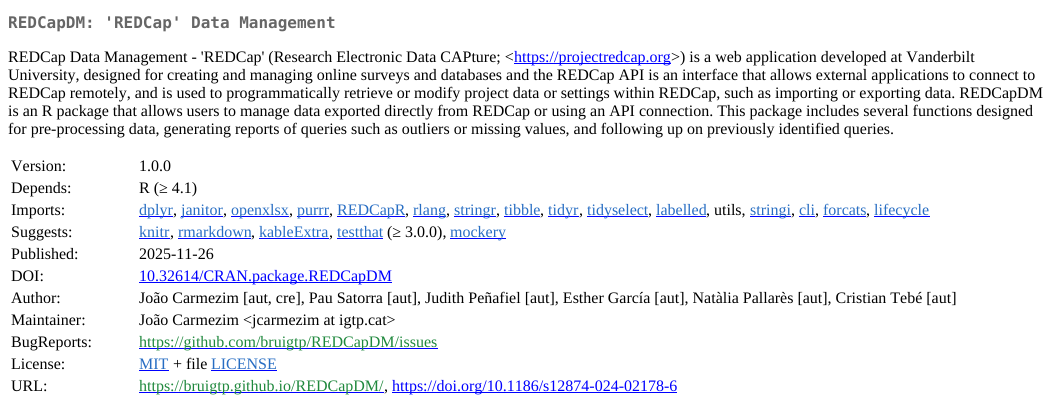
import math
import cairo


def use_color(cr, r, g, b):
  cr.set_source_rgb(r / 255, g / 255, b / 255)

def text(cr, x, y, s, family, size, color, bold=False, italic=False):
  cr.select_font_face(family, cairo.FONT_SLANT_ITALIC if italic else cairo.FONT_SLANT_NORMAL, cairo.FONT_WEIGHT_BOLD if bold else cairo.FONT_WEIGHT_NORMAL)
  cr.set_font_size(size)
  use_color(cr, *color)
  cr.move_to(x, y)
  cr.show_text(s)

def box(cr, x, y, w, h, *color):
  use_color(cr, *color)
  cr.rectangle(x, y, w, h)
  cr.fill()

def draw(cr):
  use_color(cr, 255, 255, 255)
  cr.paint()
  box(cr, 514, 63, 157, 1, 0, 0, 255)
  box(cr, 139, 216, 34, 1, 0, 0, 255)
  box(cr, 181, 216, 42, 1, 0, 0, 255)
  box(cr, 231, 216, 58, 1, 0, 0, 255)
  box(cr, 297, 216, 32, 1, 0, 0, 255)
  box(cr, 337, 216, 68, 1, 0, 0, 255)
  box(cr, 413, 216, 33, 1, 0, 0, 255)
  box(cr, 454, 216, 42, 1, 0, 0, 255)
  box(cr, 504, 216, 36, 1, 0, 0, 255)
  box(cr, 548, 216, 31, 1, 0, 0, 255)
  box(cr, 587, 216, 61, 1, 0, 0, 255)
  box(cr, 656, 216, 50, 1, 0, 0, 255)
  box(cr, 750, 216, 41, 1, 0, 0, 255)
  box(cr, 799, 216, 16, 1, 0, 0, 255)
  box(cr, 823, 216, 43, 1, 0, 0, 255)
  box(cr, 874, 216, 56, 1, 0, 0, 255)
  box(cr, 139, 238, 31, 1, 0, 0, 255)
  box(cr, 178, 238, 73, 1, 0, 0, 255)
  box(cr, 259, 238, 70, 1, 0, 0, 255)
  box(cr, 337, 238, 46, 1, 0, 0, 255)
  box(cr, 450, 238, 56, 1, 0, 0, 255)
  box(cr, 139, 282, 253, 1, 0, 0, 255)
  box(cr, 139, 348, 299, 1, 0, 0, 255)
  box(cr, 139, 370, 30, 1, 0, 0, 255)
  box(cr, 211, 370, 66, 1, 0, 0, 255)
  box(cr, 139, 392, 245, 1, 0, 0, 255)
  box(cr, 392, 392, 285, 1, 0, 0, 255)
  text(cr, 8, 28, "REDCapDM: 'REDCap' Data Management", "DejaVu Sans Mono", 16, (102, 102, 102), bold=True)
  text(cr, 8, 62, "REDCap Data Management - 'REDCap' (Research Electronic Data CAPture; <", "Liberation Serif", 16, (0, 0, 0))
  text(cr, 514, 62, "https://projectredcap.org", "Liberation Serif", 16, (0, 0, 255))
  text(cr, 671, 62, ">) is a web application developed at Vanderbilt", "Liberation Serif", 16, (0, 0, 0))
  text(cr, 8, 80, "University, designed for creating and managing online surveys and databases and the REDCap API is an interface that allows external applications to connect to", "Liberation Serif", 16, (0, 0, 0))
  text(cr, 8, 98, "REDCap remotely, and is used to programmatically retrieve or modify project data or settings within REDCap, such as importing or exporting data. REDCapDM", "Liberation Serif", 16, (0, 0, 0))
  text(cr, 8, 116, "is an R package that allows users to manage data exported directly from REDCap or using an API connection. This package includes several functions designed", "Liberation Serif", 16, (0, 0, 0))
  text(cr, 8, 134, "for pre-processing data, generating reports of queries such as outliers or missing values, and following up on previously identified queries.", "Liberation Serif", 16, (0, 0, 0))
  text(cr, 11, 171, "Version:", "Liberation Serif", 16, (0, 0, 0))
  text(cr, 139, 171, "1.0.0", "Liberation Serif", 16, (0, 0, 0))
  text(cr, 11, 193, "Depends:", "Liberation Serif", 16, (0, 0, 0))
  text(cr, 139, 193, "R (≥ 4.1)", "Liberation Serif", 16, (0, 0, 0))
  text(cr, 11, 215, "Imports:", "Liberation Serif", 16, (0, 0, 0))
  text(cr, 139, 215, "dplyr", "Liberation Serif", 16, (39, 109, 195))
  text(cr, 173, 215, ",", "Liberation Serif", 16, (0, 0, 0))
  text(cr, 181, 215, "janitor", "Liberation Serif", 16, (39, 109, 195))
  text(cr, 223, 215, ",", "Liberation Serif", 16, (0, 0, 0))
  text(cr, 231, 215, "openxlsx", "Liberation Serif", 16, (39, 109, 195))
  text(cr, 289, 215, ",", "Liberation Serif", 16, (0, 0, 0))
  text(cr, 297, 215, "purrr", "Liberation Serif", 16, (39, 109, 195))
  text(cr, 329, 215, ",", "Liberation Serif", 16, (0, 0, 0))
  text(cr, 337, 215, "REDCapR", "Liberation Serif", 16, (39, 109, 195))
  text(cr, 405, 215, ",", "Liberation Serif", 16, (0, 0, 0))
  text(cr, 413, 215, "rlang", "Liberation Serif", 16, (39, 109, 195))
  text(cr, 446, 215, ",", "Liberation Serif", 16, (0, 0, 0))
  text(cr, 454, 215, "stringr", "Liberation Serif", 16, (39, 109, 195))
  text(cr, 496, 215, ",", "Liberation Serif", 16, (0, 0, 0))
  text(cr, 504, 215, "tibble", "Liberation Serif", 16, (39, 109, 195))
  text(cr, 540, 215, ",", "Liberation Serif", 16, (0, 0, 0))
  text(cr, 548, 215, "tidyr", "Liberation Serif", 16, (39, 109, 195))
  text(cr, 579, 215, ",", "Liberation Serif", 16, (0, 0, 0))
  text(cr, 587, 215, "tidyselect", "Liberation Serif", 16, (39, 109, 195))
  text(cr, 648, 215, ",", "Liberation Serif", 16, (0, 0, 0))
  text(cr, 656, 215, "labelled", "Liberation Serif", 16, (39, 109, 195))
  text(cr, 706, 215, ", utils,", "Liberation Serif", 16, (0, 0, 0))
  text(cr, 750, 215, "stringi", "Liberation Serif", 16, (39, 109, 195))
  text(cr, 791, 215, ",", "Liberation Serif", 16, (0, 0, 0))
  text(cr, 799, 215, "cli", "Liberation Serif", 16, (39, 109, 195))
  text(cr, 815, 215, ",", "Liberation Serif", 16, (0, 0, 0))
  text(cr, 823, 215, "forcats", "Liberation Serif", 16, (39, 109, 195))
  text(cr, 866, 215, ",", "Liberation Serif", 16, (0, 0, 0))
  text(cr, 874, 215, "lifecycle", "Liberation Serif", 16, (39, 109, 195))
  text(cr, 11, 237, "Suggests:", "Liberation Serif", 16, (0, 0, 0))
  text(cr, 139, 237, "knitr", "Liberation Serif", 16, (39, 109, 195))
  text(cr, 170, 237, ",", "Liberation Serif", 16, (0, 0, 0))
  text(cr, 178, 237, "rmarkdown", "Liberation Serif", 16, (39, 109, 195))
  text(cr, 251, 237, ",", "Liberation Serif", 16, (0, 0, 0))
  text(cr, 259, 237, "kableExtra", "Liberation Serif", 16, (39, 109, 195))
  text(cr, 329, 237, ",", "Liberation Serif", 16, (0, 0, 0))
  text(cr, 337, 237, "testthat", "Liberation Serif", 16, (39, 109, 195))
  text(cr, 387, 237, "(≥ 3.0.0),", "Liberation Serif", 16, (0, 0, 0))
  text(cr, 450, 237, "mockery", "Liberation Serif", 16, (39, 109, 195))
  text(cr, 11, 259, "Published:", "Liberation Serif", 16, (0, 0, 0))
  text(cr, 139, 259, "2025-11-26", "Liberation Serif", 16, (0, 0, 0))
  text(cr, 11, 281, "DOI:", "Liberation Serif", 16, (0, 0, 0))
  text(cr, 139, 281, "10.32614/CRAN.package.REDCapDM", "Liberation Serif", 16, (0, 0, 255))
  text(cr, 11, 303, "Author:", "Liberation Serif", 16, (0, 0, 0))
  text(cr, 139, 303, "João Carmezim [aut, cre], Pau Satorra [aut], Judith Peñafiel [aut], Esther García [aut], Natàlia Pallarès [aut], Cristian Tebé [aut]", "Liberation Serif", 16, (0, 0, 0))
  text(cr, 11, 325, "Maintainer:", "Liberation Serif", 16, (0, 0, 0))
  text(cr, 139, 325, "João Carmezim <jcarmezim at igtp.cat>", "Liberation Serif", 16, (0, 0, 0))
  text(cr, 11, 347, "BugReports:", "Liberation Serif", 16, (0, 0, 0))
  text(cr, 139, 347, "https://github.com/bruigtp/REDCapDM/issues", "Liberation Serif", 16, (31, 136, 61))
  text(cr, 11, 369, "License:", "Liberation Serif", 16, (0, 0, 0))
  text(cr, 139, 369, "MIT", "Liberation Serif", 16, (39, 109, 195))
  text(cr, 173, 369, "+ file", "Liberation Serif", 16, (0, 0, 0))
  text(cr, 211, 369, "LICENSE", "Liberation Serif", 16, (39, 109, 195))
  text(cr, 11, 391, "URL:", "Liberation Serif", 16, (0, 0, 0))
  text(cr, 139, 391, "https://bruigtp.github.io/REDCapDM/", "Liberation Serif", 16, (31, 136, 61))
  text(cr, 384, 391, ",", "Liberation Serif", 16, (0, 0, 0))
  text(cr, 392, 391, "https://doi.org/10.1186/s12874-024-02178-6", "Liberation Serif", 16, (0, 0, 255))


surface = cairo.ImageSurface(cairo.FORMAT_RGB24, 1052, 408)
cr = cairo.Context(surface)
options = cairo.FontOptions()
options.set_hint_metrics(cairo.HINT_METRICS_OFF)
options.set_hint_style(cairo.HINT_STYLE_NONE)
cr.set_font_options(options)
cr.set_miter_limit(4)
draw(cr)
surface.write_to_png("out.png")
